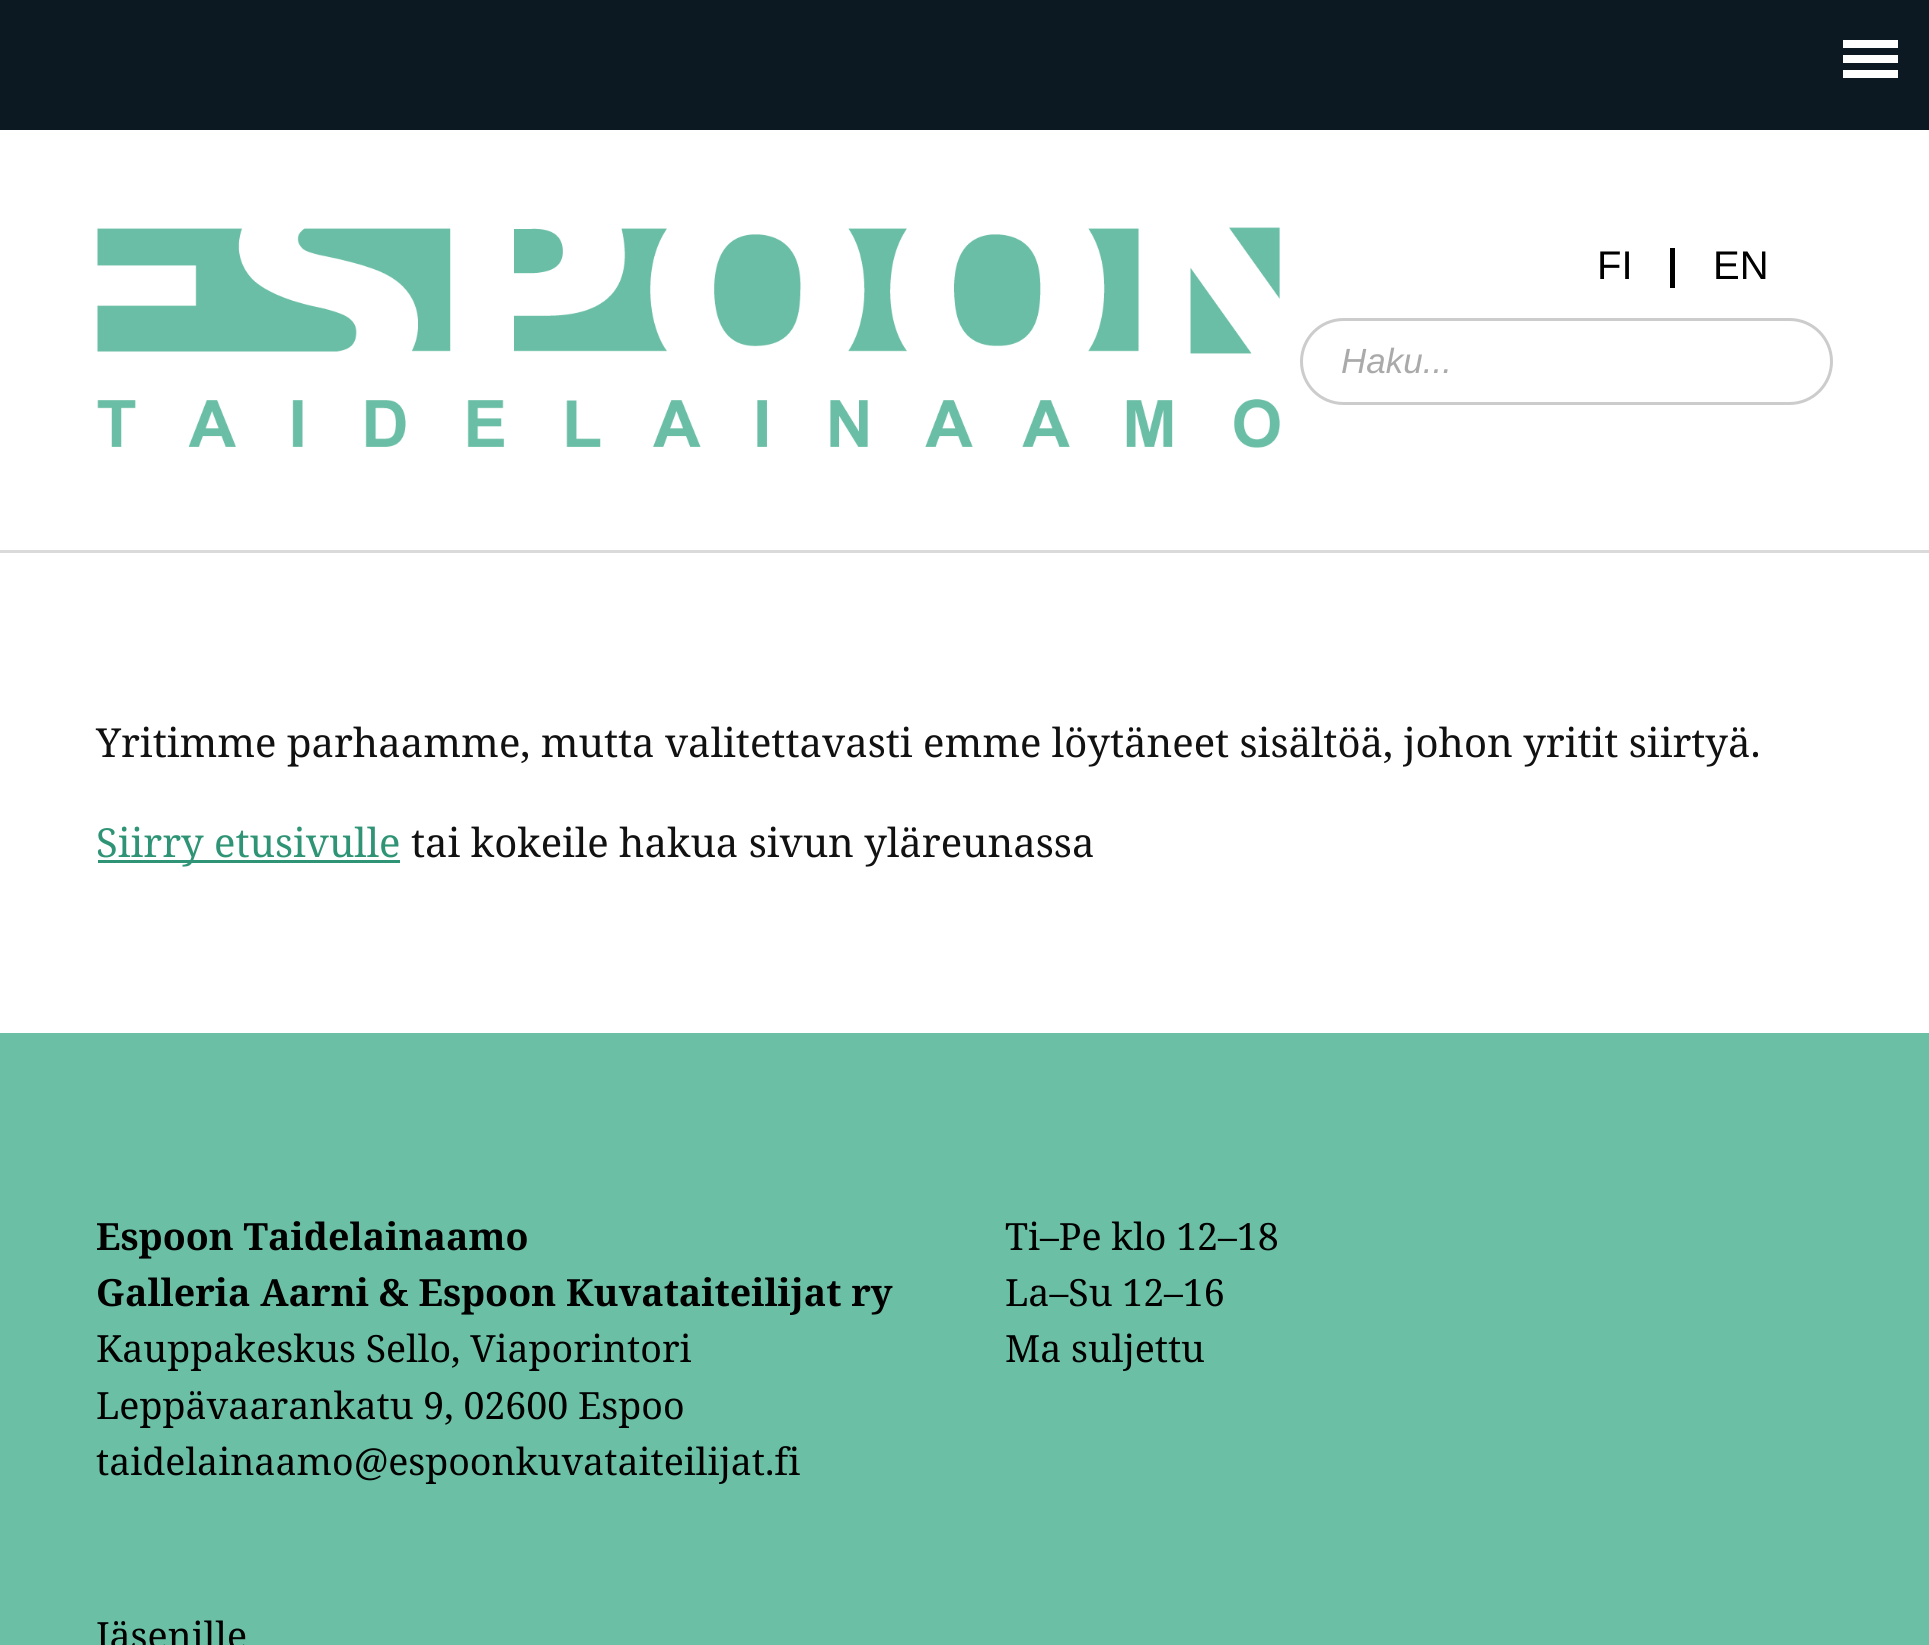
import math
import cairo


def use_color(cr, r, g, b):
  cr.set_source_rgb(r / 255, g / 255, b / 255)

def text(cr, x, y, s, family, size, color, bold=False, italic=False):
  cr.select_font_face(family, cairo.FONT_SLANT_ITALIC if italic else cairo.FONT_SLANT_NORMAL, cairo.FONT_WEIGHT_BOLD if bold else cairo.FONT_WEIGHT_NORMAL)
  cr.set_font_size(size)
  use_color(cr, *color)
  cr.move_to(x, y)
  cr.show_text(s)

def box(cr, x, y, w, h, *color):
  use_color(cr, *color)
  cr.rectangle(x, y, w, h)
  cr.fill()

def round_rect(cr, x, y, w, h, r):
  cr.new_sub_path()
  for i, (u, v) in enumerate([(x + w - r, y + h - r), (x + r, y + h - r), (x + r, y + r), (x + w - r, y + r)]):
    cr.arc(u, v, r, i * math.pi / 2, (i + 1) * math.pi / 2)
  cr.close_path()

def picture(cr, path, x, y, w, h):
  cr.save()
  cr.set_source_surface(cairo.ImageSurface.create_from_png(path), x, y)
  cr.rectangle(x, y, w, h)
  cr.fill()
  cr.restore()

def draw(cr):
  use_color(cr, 255, 255, 255)
  cr.paint()
  box(cr, 0, 0, 1929, 130, 12, 25, 35)
  box(cr, 1843, 40, 55, 8, 255, 255, 255)
  box(cr, 1843, 55, 55, 8, 255, 255, 255)
  box(cr, 1843, 70, 55, 8, 255, 255, 255)
  box(cr, 0, 550, 1929, 3, 218, 218, 218)
  picture(cr, "img_01.png", 97, 227, 1183, 221)
  box(cr, 1670, 248, 5, 40, 0, 0, 0)
  round_rect(cr, 1301.5, 319.5, 530, 84, 42)
  use_color(cr, 204, 204, 204)
  cr.set_line_width(3)
  cr.stroke()
  box(cr, 98, 860, 302, 3, 47, 148, 117)
  box(cr, 0, 1033, 1929, 612, 107, 191, 165)
  text(cr, 1597, 279, "FI", "Liberation Sans", 40, (0, 0, 0))
  text(cr, 1713, 279, "EN", "Liberation Sans", 40, (0, 0, 0))
  text(cr, 1341, 373, "Haku...", "Liberation Sans", 35, (170, 170, 170), italic=True)
  text(cr, 96, 757, "Yritimme parhaamme, mutta valitettavasti emme löytäneet sisältöä, johon yritit siirtyä.", "Noto Serif", 40, (17, 17, 17))
  text(cr, 96, 857, "Siirry etusivulle", "Noto Serif", 40, (47, 148, 117))
  text(cr, 411, 857, "tai kokeile hakua sivun yläreunassa", "Noto Serif", 40, (17, 17, 17))
  text(cr, 96, 1250, "Espoon Taidelainaamo", "Noto Serif", 37.5, (0, 0, 0), bold=True)
  text(cr, 96, 1306, "Galleria Aarni & Espoon Kuvataiteilijat ry", "Noto Serif", 37.5, (0, 0, 0), bold=True)
  text(cr, 96, 1362, "Kauppakeskus Sello, Viaporintori", "Noto Serif", 37.5, (0, 0, 0))
  text(cr, 96, 1419, "Leppävaarankatu 9, 02600 Espoo", "Noto Serif", 37.5, (0, 0, 0))
  text(cr, 96, 1475, "taidelainaamo@espoonkuvataiteilijat.fi", "Noto Serif", 37.5, (0, 0, 0))
  text(cr, 1005, 1250, "Ti–Pe klo 12–18", "Noto Serif", 37.5, (0, 0, 0))
  text(cr, 1005, 1306, "La–Su 12–16", "Noto Serif", 37.5, (0, 0, 0))
  text(cr, 1005, 1362, "Ma suljettu", "Noto Serif", 37.5, (0, 0, 0))
  text(cr, 96, 1649, "Jäsenille", "Noto Serif", 37.5, (0, 0, 0))


surface = cairo.ImageSurface(cairo.FORMAT_RGB24, 1929, 1645)
cr = cairo.Context(surface)
options = cairo.FontOptions()
options.set_hint_metrics(cairo.HINT_METRICS_OFF)
options.set_hint_style(cairo.HINT_STYLE_NONE)
cr.set_font_options(options)
cr.set_miter_limit(4)
draw(cr)
surface.write_to_png("out.png")
